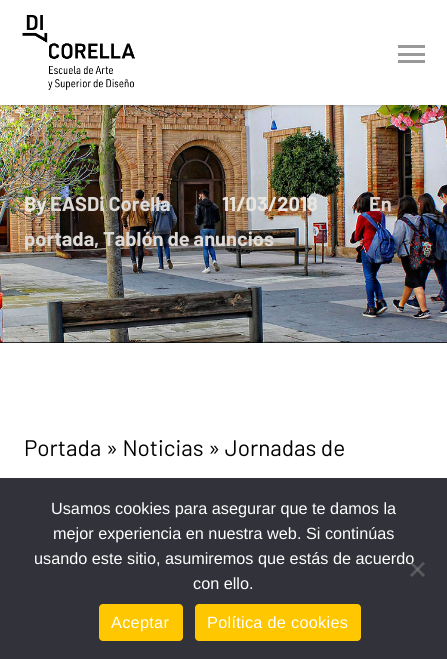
import math
import cairo


def use_color(cr, r, g, b):
  cr.set_source_rgb(r / 255, g / 255, b / 255)

def text(cr, x, y, s, family, size, color, bold=False, italic=False):
  cr.select_font_face(family, cairo.FONT_SLANT_ITALIC if italic else cairo.FONT_SLANT_NORMAL, cairo.FONT_WEIGHT_BOLD if bold else cairo.FONT_WEIGHT_NORMAL)
  cr.set_font_size(size)
  use_color(cr, *color)
  cr.move_to(x, y)
  cr.show_text(s)

def spaced_text(cr, x, y, s, letter, word):
  cr.move_to(x, y)
  for ch in s:
    cr.show_text(ch)
    cr.rel_move_to(letter + word * (ch == ' '), 0)

def box(cr, x, y, w, h, *color):
  use_color(cr, *color)
  cr.rectangle(x, y, w, h)
  cr.fill()

def round_rect(cr, x, y, w, h, r):
  cr.new_sub_path()
  for i, (u, v) in enumerate([(x + w - r, y + h - r), (x + r, y + h - r), (x + r, y + r), (x + w - r, y + r)]):
    cr.arc(u, v, r, i * math.pi / 2, (i + 1) * math.pi / 2)
  cr.close_path()

def shadow(cr, x, y, w, h, r, blur, alpha):
  cr.push_group_with_content(cairo.CONTENT_ALPHA)
  cr.set_operator(cairo.OPERATOR_SOURCE)
  for i in range(15, -16, -2):
    e = blur * i / 6
    if min(w, h) + 2 * e > 0:
      cr.set_source_rgba(0, 0, 0, alpha * math.erfc((i - 1) / 8.5) / 2)
      round_rect(cr, x - e, y - e, w + 2 * e, h + 2 * e, max(0, min(r + e + blur * .6, min(w, h) / 2 + e)))
      cr.fill()
  cr.mask(cr.pop_group())

def picture(cr, path, x, y, w, h):
  cr.save()
  cr.set_source_surface(cairo.ImageSurface.create_from_png(path), x, y)
  cr.rectangle(x, y, w, h)
  cr.fill()
  cr.restore()

def draw(cr):
  use_color(cr, 255, 255, 255)
  cr.paint()
  box(cr, 0, 342, 447, 1, 0, 0, 0)
  picture(cr, "img_02.png", 0, 105, 447, 238)
  use_color(cr, 0, 0, 0)
  shadow(cr, 0, 0, 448, 105, 0, 2, 0.22)
  box(cr, 0, 0, 447, 105, 255, 255, 255)
  picture(cr, "img_01.png", 22, 15, 113, 75)
  box(cr, 398, 45, 27, 3, 153, 153, 153)
  box(cr, 398, 60, 27, 3, 153, 153, 153)
  box(cr, 398, 53, 27, 3, 153, 153, 153)
  cr.set_source_rgba(1, 1, 1, 0.25)
  cr.rectangle(196, 191, 1, 24)
  cr.fill()
  cr.rectangle(343, 191, 1, 24)
  cr.fill()
  box(cr, 0, 478, 447, 181, 50, 50, 58)
  use_color(cr, 255, 199, 0)
  round_rect(cr, 99, 604, 84, 37, 4)
  cr.fill()
  round_rect(cr, 195, 604, 166, 37, 4)
  cr.fill()
  text(cr, 24, 211, "By", "Barlow", 20, (231, 229, 222), bold=True)
  text(cr, 50, 211, "EASDi Corella", "Barlow", 20, (221, 218, 215), bold=True)
  text(cr, 222, 211, "11/03/2018", "Barlow", 20, (231, 229, 222), bold=True)
  text(cr, 369, 211, "En", "Barlow", 20, (218, 212, 210), bold=True)
  text(cr, 24, 246, "portada", "Barlow", 20, (221, 218, 215), bold=True)
  text(cr, 94, 246, ",", "Barlow", 20, (210, 207, 207), bold=True)
  text(cr, 103, 246, "Tablón de anuncios", "Barlow", 20, (221, 218, 215), bold=True)
  text(cr, 24, 456, "Portada » Noticias » Jornadas de", "Barlow", 22.5, (0, 0, 0))
  text(cr, 51, 514, "Usamos cookies para asegurar que te damos la", "Liberation Sans", 16.25, (255, 255, 255))
  text(cr, 53, 539, "mejor experiencia en nuestra web. Si continúas", "Liberation Sans", 16.25, (255, 255, 255))
  text(cr, 34, 564, "usando este sitio, asumiremos que estás de acuerdo", "Liberation Sans", 16.25, (255, 255, 255))
  text(cr, 193, 589, "con ello.", "Liberation Sans", 16.25, (255, 255, 255))
  use_color(cr, 89, 89, 93)
  cr.new_path()
  cr.move_to(423, 562)
  cr.line_to(425, 563.5)
  cr.line_to(412, 577)
  cr.line_to(410, 575)
  cr.close_path()
  cr.fill()
  cr.set_source_rgba(0.502, 0.502, 0.502, 0.5)
  cr.new_path()
  cr.move_to(410, 563.5)
  cr.line_to(412, 562)
  cr.line_to(425, 575)
  cr.line_to(423, 577)
  cr.close_path()
  cr.fill()
  use_color(cr, 255, 255, 255)
  spaced_text(cr, 111, 628, "Aceptar", 0.3, 0)
  spaced_text(cr, 207, 628, "Política de cookies", 0.3, 0)


surface = cairo.ImageSurface(cairo.FORMAT_RGB24, 447, 659)
cr = cairo.Context(surface)
options = cairo.FontOptions()
options.set_hint_metrics(cairo.HINT_METRICS_OFF)
options.set_hint_style(cairo.HINT_STYLE_NONE)
cr.set_font_options(options)
cr.set_miter_limit(4)
draw(cr)
surface.write_to_png("out.png")
